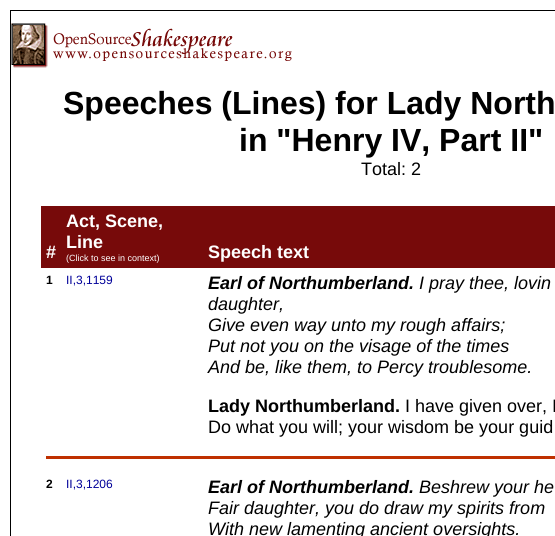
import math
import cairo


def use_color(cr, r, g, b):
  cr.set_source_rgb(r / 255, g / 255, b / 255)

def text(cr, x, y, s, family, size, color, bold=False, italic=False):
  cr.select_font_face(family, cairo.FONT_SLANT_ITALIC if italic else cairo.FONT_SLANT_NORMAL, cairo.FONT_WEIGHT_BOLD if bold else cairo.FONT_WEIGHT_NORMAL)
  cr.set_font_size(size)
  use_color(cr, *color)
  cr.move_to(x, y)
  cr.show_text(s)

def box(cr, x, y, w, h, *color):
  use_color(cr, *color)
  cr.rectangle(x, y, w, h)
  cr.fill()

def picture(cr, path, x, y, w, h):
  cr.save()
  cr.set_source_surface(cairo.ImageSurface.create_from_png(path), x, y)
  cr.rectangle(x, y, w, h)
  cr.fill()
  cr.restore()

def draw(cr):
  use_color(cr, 255, 255, 255)
  cr.paint()
  cr.rectangle(10.5, 10.5, 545, 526)
  use_color(cr, 0, 0, 0)
  cr.set_line_width(1)
  cr.stroke()
  picture(cr, "img_01.png", 11, 23, 281, 45)
  box(cr, 41, 206, 514, 62, 119, 10, 10)
  box(cr, 47, 457, 508, 2, 191, 48, 0)
  box(cr, 46, 456, 509, 1, 191, 48, 0)
  box(cr, 46, 456, 1, 3, 191, 48, 0)
  text(cr, 63, 114, "Speeches (Lines) for Lady North", "Liberation Sans", 32, (0, 0, 0), bold=True)
  text(cr, 239, 151, "in \"Henry IV, Part II\"", "Liberation Sans", 32, (0, 0, 0), bold=True)
  text(cr, 361, 175, "Total: 2", "Liberation Sans", 18, (0, 0, 0))
  text(cr, 46, 258, "#", "Liberation Sans", 18, (255, 255, 255), bold=True)
  text(cr, 66, 227, "Act, Scene,", "Liberation Sans", 18, (255, 255, 255), bold=True)
  text(cr, 66, 248, "Line", "Liberation Sans", 18, (255, 255, 255), bold=True)
  text(cr, 66, 261, "(Click to see in context)", "Liberation Sans", 9, (255, 255, 255))
  text(cr, 208, 258, "Speech text", "Liberation Sans", 18, (255, 255, 255), bold=True)
  text(cr, 46, 284, "1", "Liberation Sans", 12, (0, 0, 0), bold=True)
  text(cr, 66, 284, "II,3,1159", "Liberation Sans", 12, (0, 0, 153))
  text(cr, 208, 289, "Earl of Northumberland.", "Liberation Sans", 18, (0, 0, 0), bold=True, italic=True)
  text(cr, 419, 289, "I pray thee, lovin", "Liberation Sans", 18, (0, 0, 0), italic=True)
  text(cr, 208, 310, "daughter,", "Liberation Sans", 18, (0, 0, 0), italic=True)
  text(cr, 208, 331, "Give even way unto my rough affairs;", "Liberation Sans", 18, (0, 0, 0), italic=True)
  text(cr, 208, 352, "Put not you on the visage of the times", "Liberation Sans", 18, (0, 0, 0), italic=True)
  text(cr, 208, 373, "And be, like them, to Percy troublesome.", "Liberation Sans", 18, (0, 0, 0), italic=True)
  text(cr, 208, 412, "Lady Northumberland.", "Liberation Sans", 18, (0, 0, 0), bold=True)
  text(cr, 405, 412, "I have given over, I", "Liberation Sans", 18, (0, 0, 0))
  text(cr, 208, 433, "Do what you will; your wisdom be your guid", "Liberation Sans", 18, (0, 0, 0))
  text(cr, 46, 488, "2", "Liberation Sans", 12, (0, 0, 0), bold=True)
  text(cr, 66, 488, "II,3,1206", "Liberation Sans", 12, (0, 0, 153))
  text(cr, 208, 493, "Earl of Northumberland.", "Liberation Sans", 18, (0, 0, 0), bold=True, italic=True)
  text(cr, 419, 493, "Beshrew your he", "Liberation Sans", 18, (0, 0, 0), italic=True)
  text(cr, 208, 514, "Fair daughter, you do draw my spirits from", "Liberation Sans", 18, (0, 0, 0), italic=True)
  text(cr, 208, 535, "With new lamenting ancient oversights.", "Liberation Sans", 18, (0, 0, 0), italic=True)


surface = cairo.ImageSurface(cairo.FORMAT_RGB24, 555, 536)
cr = cairo.Context(surface)
options = cairo.FontOptions()
options.set_hint_metrics(cairo.HINT_METRICS_OFF)
options.set_hint_style(cairo.HINT_STYLE_NONE)
cr.set_font_options(options)
cr.set_miter_limit(4)
draw(cr)
surface.write_to_png("out.png")
